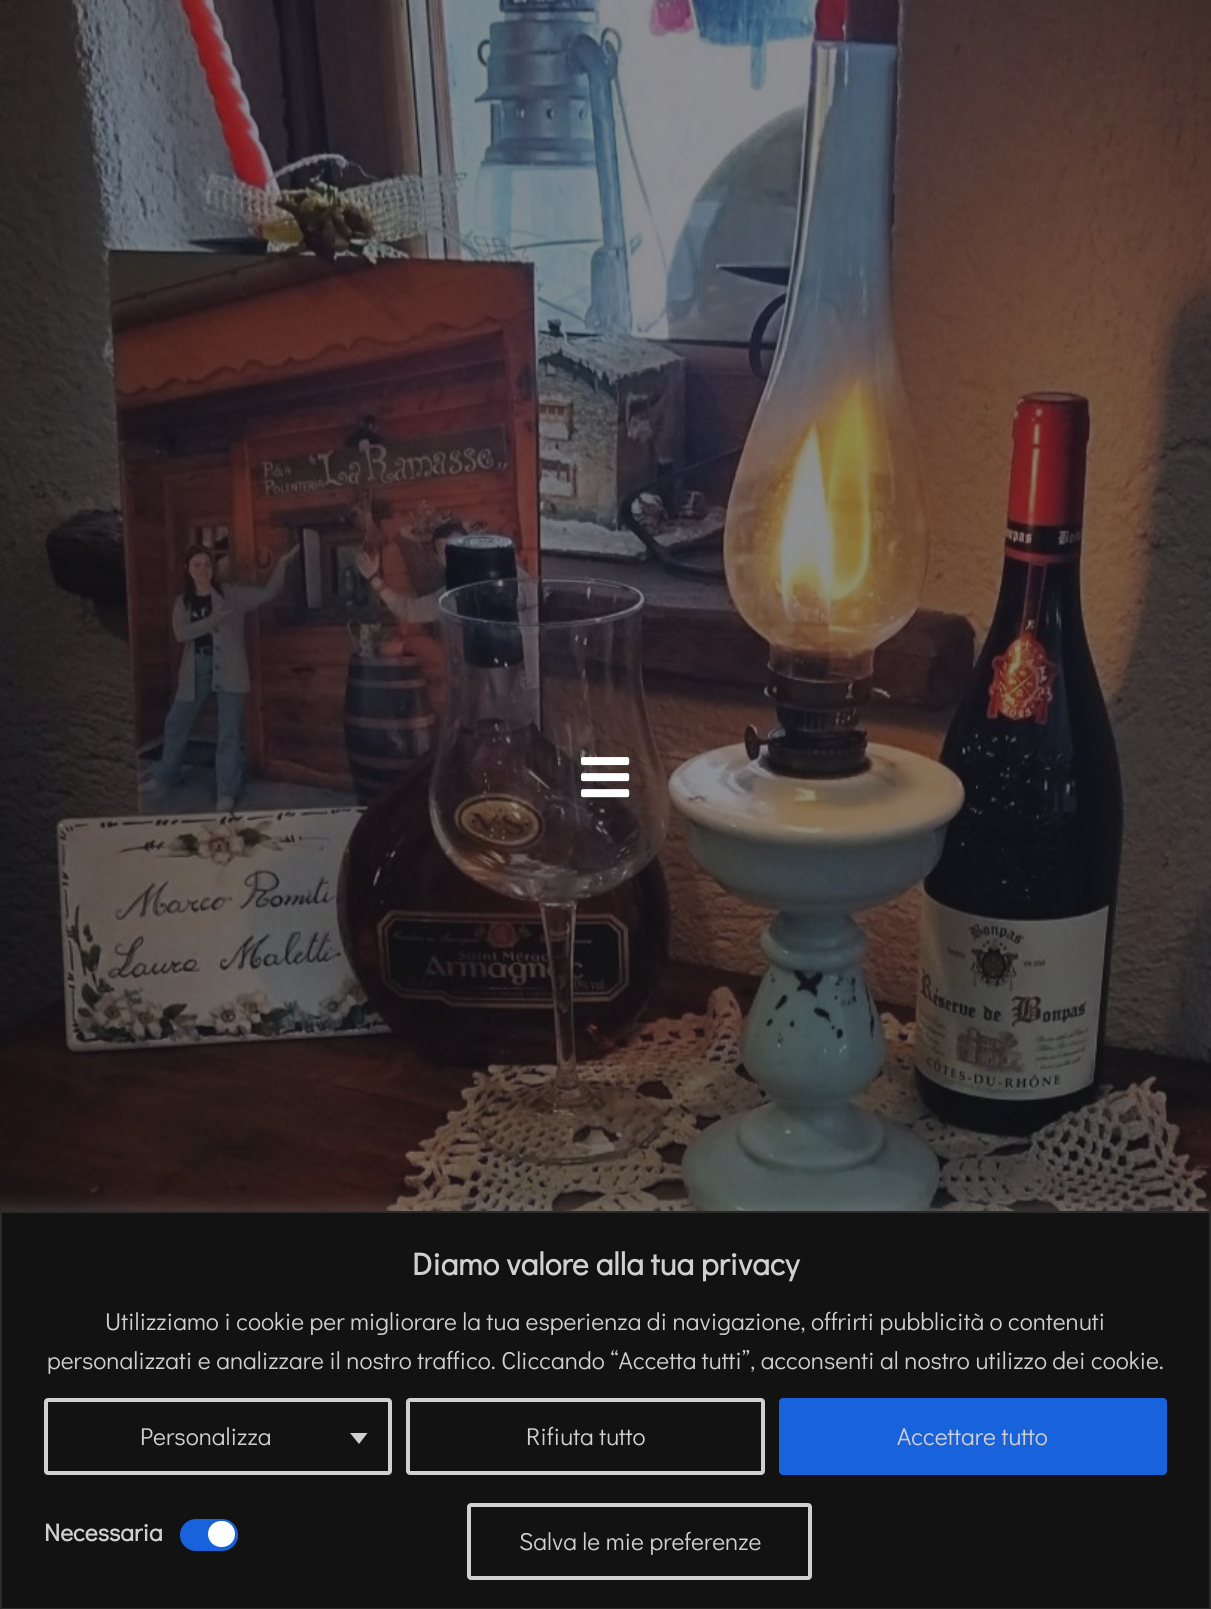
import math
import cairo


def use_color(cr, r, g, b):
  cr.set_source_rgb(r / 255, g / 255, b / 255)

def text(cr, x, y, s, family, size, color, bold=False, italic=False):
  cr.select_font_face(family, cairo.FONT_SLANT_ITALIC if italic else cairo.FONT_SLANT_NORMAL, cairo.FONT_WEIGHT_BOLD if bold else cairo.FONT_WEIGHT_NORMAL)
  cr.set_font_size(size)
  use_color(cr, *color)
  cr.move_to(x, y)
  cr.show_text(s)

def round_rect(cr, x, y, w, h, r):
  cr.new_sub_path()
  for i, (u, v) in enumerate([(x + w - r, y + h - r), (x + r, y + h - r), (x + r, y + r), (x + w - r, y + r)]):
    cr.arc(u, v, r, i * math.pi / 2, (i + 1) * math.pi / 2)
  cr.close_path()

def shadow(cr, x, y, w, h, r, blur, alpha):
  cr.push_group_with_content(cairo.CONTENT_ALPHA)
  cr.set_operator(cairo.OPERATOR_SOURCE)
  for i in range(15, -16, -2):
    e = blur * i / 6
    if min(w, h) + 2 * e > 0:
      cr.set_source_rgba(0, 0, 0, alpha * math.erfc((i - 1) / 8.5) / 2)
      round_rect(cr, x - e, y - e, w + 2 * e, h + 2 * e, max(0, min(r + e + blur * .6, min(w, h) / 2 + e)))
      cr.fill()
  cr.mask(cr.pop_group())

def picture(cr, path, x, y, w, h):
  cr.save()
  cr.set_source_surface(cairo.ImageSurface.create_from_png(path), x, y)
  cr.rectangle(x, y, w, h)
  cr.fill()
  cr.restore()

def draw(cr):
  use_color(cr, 255, 255, 255)
  cr.paint()
  picture(cr, "img_01.png", 0, 0, 1211, 1211)
  cr.set_source_rgba(0, 0, 0, 0.1)
  round_rect(cr, 565, 739, 81, 80, 40)
  cr.fill()
  picture(cr, "img_02.png", 581, 757, 49, 41)
  use_color(cr, 172, 171, 171)
  shadow(cr, 0, 1209, 1211, 399, 0, 9, 0.3)
  use_color(cr, 18, 18, 18)
  cr.rectangle(1, 1212, 1209, 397)
  cr.fill_preserve()
  use_color(cr, 42, 42, 42)
  cr.stroke()
  round_rect(cr, 46, 1400, 344, 73, 2)
  use_color(cr, 208, 208, 208)
  cr.set_line_width(4)
  cr.stroke()
  cr.new_path()
  cr.move_to(350, 1433)
  cr.line_to(367.5, 1433)
  cr.line_to(359, 1444)
  cr.close_path()
  cr.fill()
  round_rect(cr, 408, 1400, 355, 73, 2)
  cr.stroke()
  use_color(cr, 24, 99, 220)
  round_rect(cr, 781, 1400, 384, 73, 2)
  cr.fill_preserve()
  cr.stroke()
  round_rect(cr, 180, 1519, 58, 32, 16)
  cr.fill()
  use_color(cr, 255, 255, 255)
  round_rect(cr, 208, 1521, 27, 26, 13)
  cr.fill()
  round_rect(cr, 469, 1505, 341, 73, 2)
  use_color(cr, 208, 208, 208)
  cr.stroke()
  text(cr, 412, 1275, "Diamo valore alla tua privacy", "Didact Gothic", 31.5, (208, 208, 208), bold=True)
  text(cr, 105, 1330, "Utilizziamo i cookie per migliorare la tua esperienza di navigazione, offrirti pubblicità o contenuti", "Didact Gothic", 24.5, (208, 208, 208))
  text(cr, 47, 1369, "personalizzati e analizzare il nostro traffico. Cliccando “Accetta tutti”, acconsenti al nostro utilizzo dei cookie.", "Didact Gothic", 24.5, (208, 208, 208))
  text(cr, 140, 1445, "Personalizza", "Didact Gothic", 24.5, (208, 208, 208))
  text(cr, 526, 1445, "Rifiuta tutto", "Didact Gothic", 24.5, (208, 208, 208))
  text(cr, 897, 1445, "Accettare tutto", "Didact Gothic", 24.5, (208, 208, 208))
  text(cr, 44, 1541, "Necessaria", "Didact Gothic", 24.5, (208, 208, 208), bold=True)
  text(cr, 519, 1550, "Salva le mie preferenze", "Didact Gothic", 24.5, (208, 208, 208))


surface = cairo.ImageSurface(cairo.FORMAT_RGB24, 1211, 1609)
cr = cairo.Context(surface)
options = cairo.FontOptions()
options.set_hint_metrics(cairo.HINT_METRICS_OFF)
options.set_hint_style(cairo.HINT_STYLE_NONE)
cr.set_font_options(options)
cr.set_miter_limit(4)
draw(cr)
surface.write_to_png("out.png")
